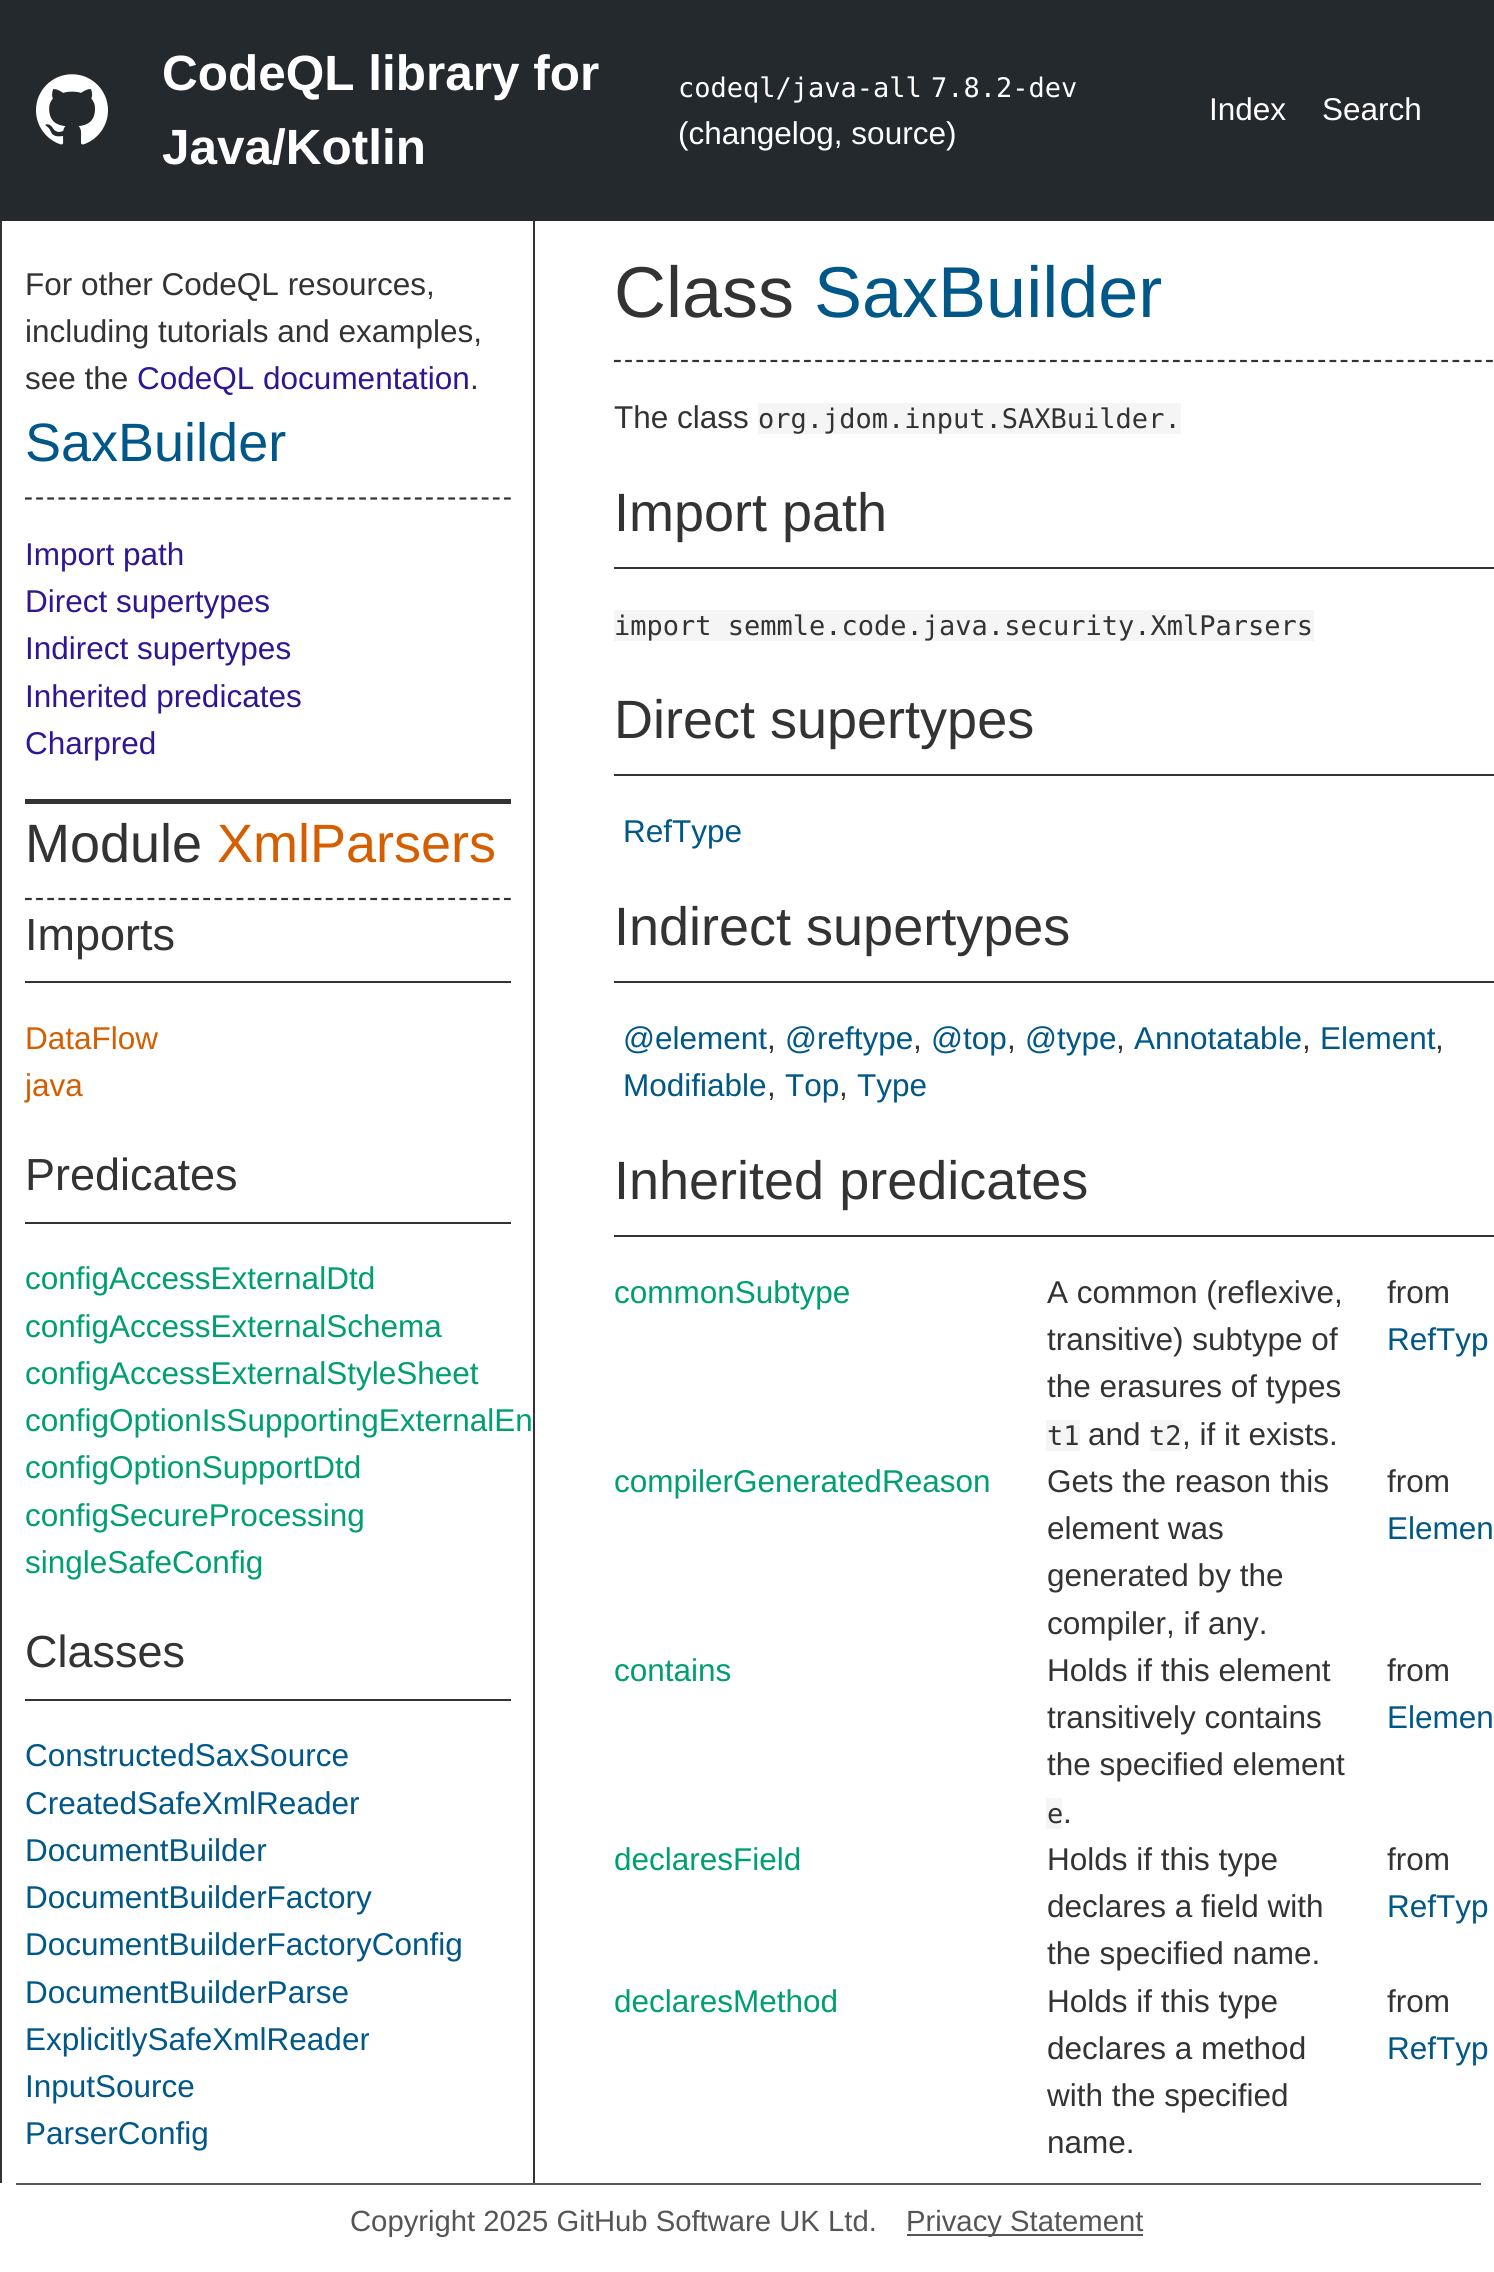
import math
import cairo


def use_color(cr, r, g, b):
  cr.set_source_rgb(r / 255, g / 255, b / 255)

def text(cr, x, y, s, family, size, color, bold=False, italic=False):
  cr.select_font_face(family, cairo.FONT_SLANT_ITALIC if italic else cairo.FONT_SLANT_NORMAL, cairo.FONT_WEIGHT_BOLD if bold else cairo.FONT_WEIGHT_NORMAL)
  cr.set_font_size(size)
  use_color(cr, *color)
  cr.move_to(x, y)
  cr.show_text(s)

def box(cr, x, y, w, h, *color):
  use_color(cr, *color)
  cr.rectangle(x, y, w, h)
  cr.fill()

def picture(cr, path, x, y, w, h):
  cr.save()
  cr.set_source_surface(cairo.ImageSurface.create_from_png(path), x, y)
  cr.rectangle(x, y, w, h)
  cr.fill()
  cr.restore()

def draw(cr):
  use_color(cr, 255, 255, 255)
  cr.paint()
  box(cr, 0, 0, 1494, 221, 36, 41, 46)
  picture(cr, "img_01.png", 36, 74, 72, 71)
  box(cr, 533, 221, 2, 1962, 51, 51, 51)
  box(cr, 0, 221, 2, 1962, 51, 51, 51)
  box(cr, 25, 799, 486, 5, 51, 51, 51)
  cr.new_path()
  cr.move_to(25, 498.5)
  cr.line_to(511, 498.5)
  cr.set_line_width(2.2)
  cr.set_dash([6.75, 4.39])
  cr.stroke()
  cr.new_path()
  cr.move_to(25, 899)
  cr.line_to(511, 899)
  cr.stroke()
  box(cr, 25, 981, 486, 2, 51, 51, 51)
  box(cr, 25, 1222, 486, 2, 51, 51, 51)
  box(cr, 25, 1699, 486, 2, 51, 51, 51)
  cr.new_path()
  cr.move_to(614, 361)
  cr.line_to(1494, 361)
  cr.set_dash([6.75, 4.43])
  cr.stroke()
  box(cr, 758, 403, 423, 31, 245, 245, 245)
  box(cr, 614, 567, 880, 2, 51, 51, 51)
  box(cr, 614, 610, 700, 31, 245, 245, 245)
  box(cr, 614, 774, 880, 2, 51, 51, 51)
  box(cr, 614, 981, 880, 2, 51, 51, 51)
  box(cr, 614, 1235, 880, 2, 51, 51, 51)
  box(cr, 1046, 1420, 34, 31, 245, 245, 245)
  box(cr, 1150, 1420, 31, 31, 245, 245, 245)
  box(cr, 1046, 1798, 16, 31, 245, 245, 245)
  box(cr, 16, 2183, 1465, 2, 85, 85, 85)
  box(cr, 907, 2234, 236, 2, 85, 85, 85)
  text(cr, 162, 90, "CodeQL library for", "Liberation Sans", 49.5, (255, 255, 255), bold=True)
  text(cr, 162, 164, "Java/Kotlin", "Liberation Sans", 49.5, (255, 255, 255), bold=True)
  text(cr, 678, 97, "codeql/java-all", "DejaVu Sans Mono", 27, (255, 255, 255))
  text(cr, 931, 97, "7.8.2-dev", "DejaVu Sans Mono", 27, (255, 255, 255))
  text(cr, 678, 144, "(changelog, source)", "Liberation Sans", 31.5, (255, 255, 255))
  text(cr, 1209, 120, "Index", "Liberation Sans", 31.5, (255, 255, 255))
  text(cr, 1322, 120, "Search", "Liberation Sans", 31.5, (255, 255, 255))
  text(cr, 25, 295, "For other CodeQL resources,", "Liberation Sans", 31.5, (51, 51, 51))
  text(cr, 25, 342, "including tutorials and examples,", "Liberation Sans", 31.5, (51, 51, 51))
  text(cr, 25, 389, "see the", "Liberation Sans", 31.5, (51, 51, 51))
  text(cr, 137, 389, "CodeQL documentation", "Liberation Sans", 31.5, (47, 22, 149))
  text(cr, 470, 389, ".", "Liberation Sans", 31.5, (51, 51, 51))
  text(cr, 25, 461, "SaxBuilder", "Liberation Sans", 54, (0, 87, 136))
  text(cr, 25, 565, "Import path", "Liberation Sans", 31.5, (47, 22, 149))
  text(cr, 25, 612, "Direct supertypes", "Liberation Sans", 31.5, (47, 22, 149))
  text(cr, 25, 659, "Indirect supertypes", "Liberation Sans", 31.5, (47, 22, 149))
  text(cr, 25, 707, "Inherited predicates", "Liberation Sans", 31.5, (47, 22, 149))
  text(cr, 25, 754, "Charpred", "Liberation Sans", 31.5, (47, 22, 149))
  text(cr, 25, 862, "Module", "Liberation Sans", 54, (51, 51, 51))
  text(cr, 217, 862, "XmlParsers", "Liberation Sans", 54, (213, 94, 0))
  text(cr, 25, 950, "Imports", "Liberation Sans", 45, (51, 51, 51))
  text(cr, 25, 1049, "DataFlow", "Liberation Sans", 31.5, (213, 94, 0))
  text(cr, 25, 1096, "java", "Liberation Sans", 31.5, (213, 94, 0))
  text(cr, 25, 1190, "Predicates", "Liberation Sans", 45, (51, 51, 51))
  text(cr, 25, 1289, "configAccessExternalDtd", "Liberation Sans", 31.5, (0, 158, 115))
  text(cr, 25, 1337, "configAccessExternalSchema", "Liberation Sans", 31.5, (0, 158, 115))
  text(cr, 25, 1384, "configAccessExternalStyleSheet", "Liberation Sans", 31.5, (0, 158, 115))
  text(cr, 25, 1431, "configOptionIsSupportingExternalEn", "Liberation Sans", 31.5, (0, 158, 115))
  text(cr, 25, 1478, "configOptionSupportDtd", "Liberation Sans", 31.5, (0, 158, 115))
  text(cr, 25, 1526, "configSecureProcessing", "Liberation Sans", 31.5, (0, 158, 115))
  text(cr, 25, 1573, "singleSafeConfig", "Liberation Sans", 31.5, (0, 158, 115))
  text(cr, 25, 1667, "Classes", "Liberation Sans", 45, (51, 51, 51))
  text(cr, 25, 1766, "ConstructedSaxSource", "Liberation Sans", 31.5, (0, 87, 136))
  text(cr, 25, 1814, "CreatedSafeXmlReader", "Liberation Sans", 31.5, (0, 87, 136))
  text(cr, 25, 1861, "DocumentBuilder", "Liberation Sans", 31.5, (0, 87, 136))
  text(cr, 25, 1908, "DocumentBuilderFactory", "Liberation Sans", 31.5, (0, 87, 136))
  text(cr, 25, 1955, "DocumentBuilderFactoryConfig", "Liberation Sans", 31.5, (0, 87, 136))
  text(cr, 25, 2003, "DocumentBuilderParse", "Liberation Sans", 31.5, (0, 87, 136))
  text(cr, 25, 2050, "ExplicitlySafeXmlReader", "Liberation Sans", 31.5, (0, 87, 136))
  text(cr, 25, 2097, "InputSource", "Liberation Sans", 31.5, (0, 87, 136))
  text(cr, 25, 2144, "ParserConfig", "Liberation Sans", 31.5, (0, 87, 136))
  text(cr, 614, 317, "Class", "Liberation Sans", 72, (51, 51, 51))
  text(cr, 814, 317, "SaxBuilder", "Liberation Sans", 72, (0, 87, 136))
  text(cr, 614, 428, "The class", "Liberation Sans", 31.5, (51, 51, 51))
  text(cr, 758, 428, "org.jdom.input.SAXBuilder.", "DejaVu Sans Mono", 27, (51, 51, 51))
  text(cr, 614, 531, "Import path", "Liberation Sans", 54, (51, 51, 51))
  text(cr, 614, 635, "import semmle.code.java.security.XmlParsers", "DejaVu Sans Mono", 27, (51, 51, 51))
  text(cr, 614, 738, "Direct supertypes", "Liberation Sans", 54, (51, 51, 51))
  text(cr, 623, 842, "RefType", "Liberation Sans", 31.5, (0, 87, 136))
  text(cr, 614, 945, "Indirect supertypes", "Liberation Sans", 54, (51, 51, 51))
  text(cr, 623, 1049, "@element", "Liberation Sans", 31.5, (0, 87, 136))
  text(cr, 767, 1049, ",", "Liberation Sans", 31.5, (51, 51, 51))
  text(cr, 785, 1049, "@reftype", "Liberation Sans", 31.5, (0, 87, 136))
  text(cr, 913, 1049, ",", "Liberation Sans", 31.5, (51, 51, 51))
  text(cr, 931, 1049, "@top", "Liberation Sans", 31.5, (0, 87, 136))
  text(cr, 1007, 1049, ",", "Liberation Sans", 31.5, (51, 51, 51))
  text(cr, 1025, 1049, "@type", "Liberation Sans", 31.5, (0, 87, 136))
  text(cr, 1116, 1049, ",", "Liberation Sans", 31.5, (51, 51, 51))
  text(cr, 1134, 1049, "Annotatable", "Liberation Sans", 31.5, (0, 87, 136))
  text(cr, 1302, 1049, ",", "Liberation Sans", 31.5, (51, 51, 51))
  text(cr, 1320, 1049, "Element", "Liberation Sans", 31.5, (0, 87, 136))
  text(cr, 1435, 1049, ",", "Liberation Sans", 31.5, (51, 51, 51))
  text(cr, 623, 1096, "Modifiable", "Liberation Sans", 31.5, (0, 87, 136))
  text(cr, 767, 1096, ",", "Liberation Sans", 31.5, (51, 51, 51))
  text(cr, 785, 1096, "Top", "Liberation Sans", 31.5, (0, 87, 136))
  text(cr, 839, 1096, ",", "Liberation Sans", 31.5, (51, 51, 51))
  text(cr, 857, 1096, "Type", "Liberation Sans", 31.5, (0, 87, 136))
  text(cr, 614, 1199, "Inherited predicates", "Liberation Sans", 54, (51, 51, 51))
  text(cr, 614, 1303, "commonSubtype", "Liberation Sans", 31.5, (0, 158, 115))
  text(cr, 1047, 1303, "A common (reflexive,", "Liberation Sans", 31.5, (51, 51, 51))
  text(cr, 1047, 1350, "transitive) subtype of", "Liberation Sans", 31.5, (51, 51, 51))
  text(cr, 1047, 1397, "the erasures of types", "Liberation Sans", 31.5, (51, 51, 51))
  text(cr, 1047, 1445, "t1", "DejaVu Sans Mono", 27, (51, 51, 51))
  text(cr, 1088, 1445, "and", "Liberation Sans", 31.5, (51, 51, 51))
  text(cr, 1149, 1445, "t2", "DejaVu Sans Mono", 27, (51, 51, 51))
  text(cr, 1182, 1445, ", if it exists.", "Liberation Sans", 31.5, (51, 51, 51))
  text(cr, 1387, 1303, "from", "Liberation Sans", 31.5, (51, 51, 51))
  text(cr, 1387, 1350, "RefTyp", "Liberation Sans", 31.5, (0, 87, 136))
  text(cr, 614, 1492, "compilerGeneratedReason", "Liberation Sans", 31.5, (0, 158, 115))
  text(cr, 1047, 1492, "Gets the reason this", "Liberation Sans", 31.5, (51, 51, 51))
  text(cr, 1047, 1539, "element was", "Liberation Sans", 31.5, (51, 51, 51))
  text(cr, 1047, 1586, "generated by the", "Liberation Sans", 31.5, (51, 51, 51))
  text(cr, 1047, 1634, "compiler, if any.", "Liberation Sans", 31.5, (51, 51, 51))
  text(cr, 1387, 1492, "from", "Liberation Sans", 31.5, (51, 51, 51))
  text(cr, 1387, 1539, "Elemen", "Liberation Sans", 31.5, (0, 87, 136))
  text(cr, 614, 1681, "contains", "Liberation Sans", 31.5, (0, 158, 115))
  text(cr, 1047, 1681, "Holds if this element", "Liberation Sans", 31.5, (51, 51, 51))
  text(cr, 1047, 1728, "transitively contains", "Liberation Sans", 31.5, (51, 51, 51))
  text(cr, 1047, 1775, "the specified element", "Liberation Sans", 31.5, (51, 51, 51))
  text(cr, 1047, 1823, "e", "DejaVu Sans Mono", 27, (51, 51, 51))
  text(cr, 1063, 1823, ".", "Liberation Sans", 31.5, (51, 51, 51))
  text(cr, 1387, 1681, "from", "Liberation Sans", 31.5, (51, 51, 51))
  text(cr, 1387, 1728, "Elemen", "Liberation Sans", 31.5, (0, 87, 136))
  text(cr, 614, 1870, "declaresField", "Liberation Sans", 31.5, (0, 158, 115))
  text(cr, 1047, 1870, "Holds if this type", "Liberation Sans", 31.5, (51, 51, 51))
  text(cr, 1047, 1917, "declares a field with", "Liberation Sans", 31.5, (51, 51, 51))
  text(cr, 1047, 1964, "the specified name.", "Liberation Sans", 31.5, (51, 51, 51))
  text(cr, 1387, 1870, "from", "Liberation Sans", 31.5, (51, 51, 51))
  text(cr, 1387, 1917, "RefTyp", "Liberation Sans", 31.5, (0, 87, 136))
  text(cr, 614, 2012, "declaresMethod", "Liberation Sans", 31.5, (0, 158, 115))
  text(cr, 1047, 2012, "Holds if this type", "Liberation Sans", 31.5, (51, 51, 51))
  text(cr, 1047, 2059, "declares a method", "Liberation Sans", 31.5, (51, 51, 51))
  text(cr, 1047, 2106, "with the specified", "Liberation Sans", 31.5, (51, 51, 51))
  text(cr, 1047, 2153, "name.", "Liberation Sans", 31.5, (51, 51, 51))
  text(cr, 1387, 2012, "from", "Liberation Sans", 31.5, (51, 51, 51))
  text(cr, 1387, 2059, "RefTyp", "Liberation Sans", 31.5, (0, 87, 136))
  text(cr, 350, 2231, "Copyright 2025 GitHub Software UK Ltd.", "Liberation Sans", 29.25, (85, 85, 85))
  text(cr, 906, 2231, "Privacy Statement", "Liberation Sans", 29.25, (85, 85, 85))


surface = cairo.ImageSurface(cairo.FORMAT_RGB24, 1494, 2272)
cr = cairo.Context(surface)
options = cairo.FontOptions()
options.set_hint_metrics(cairo.HINT_METRICS_OFF)
options.set_hint_style(cairo.HINT_STYLE_NONE)
cr.set_font_options(options)
cr.set_miter_limit(4)
draw(cr)
surface.write_to_png("out.png")
